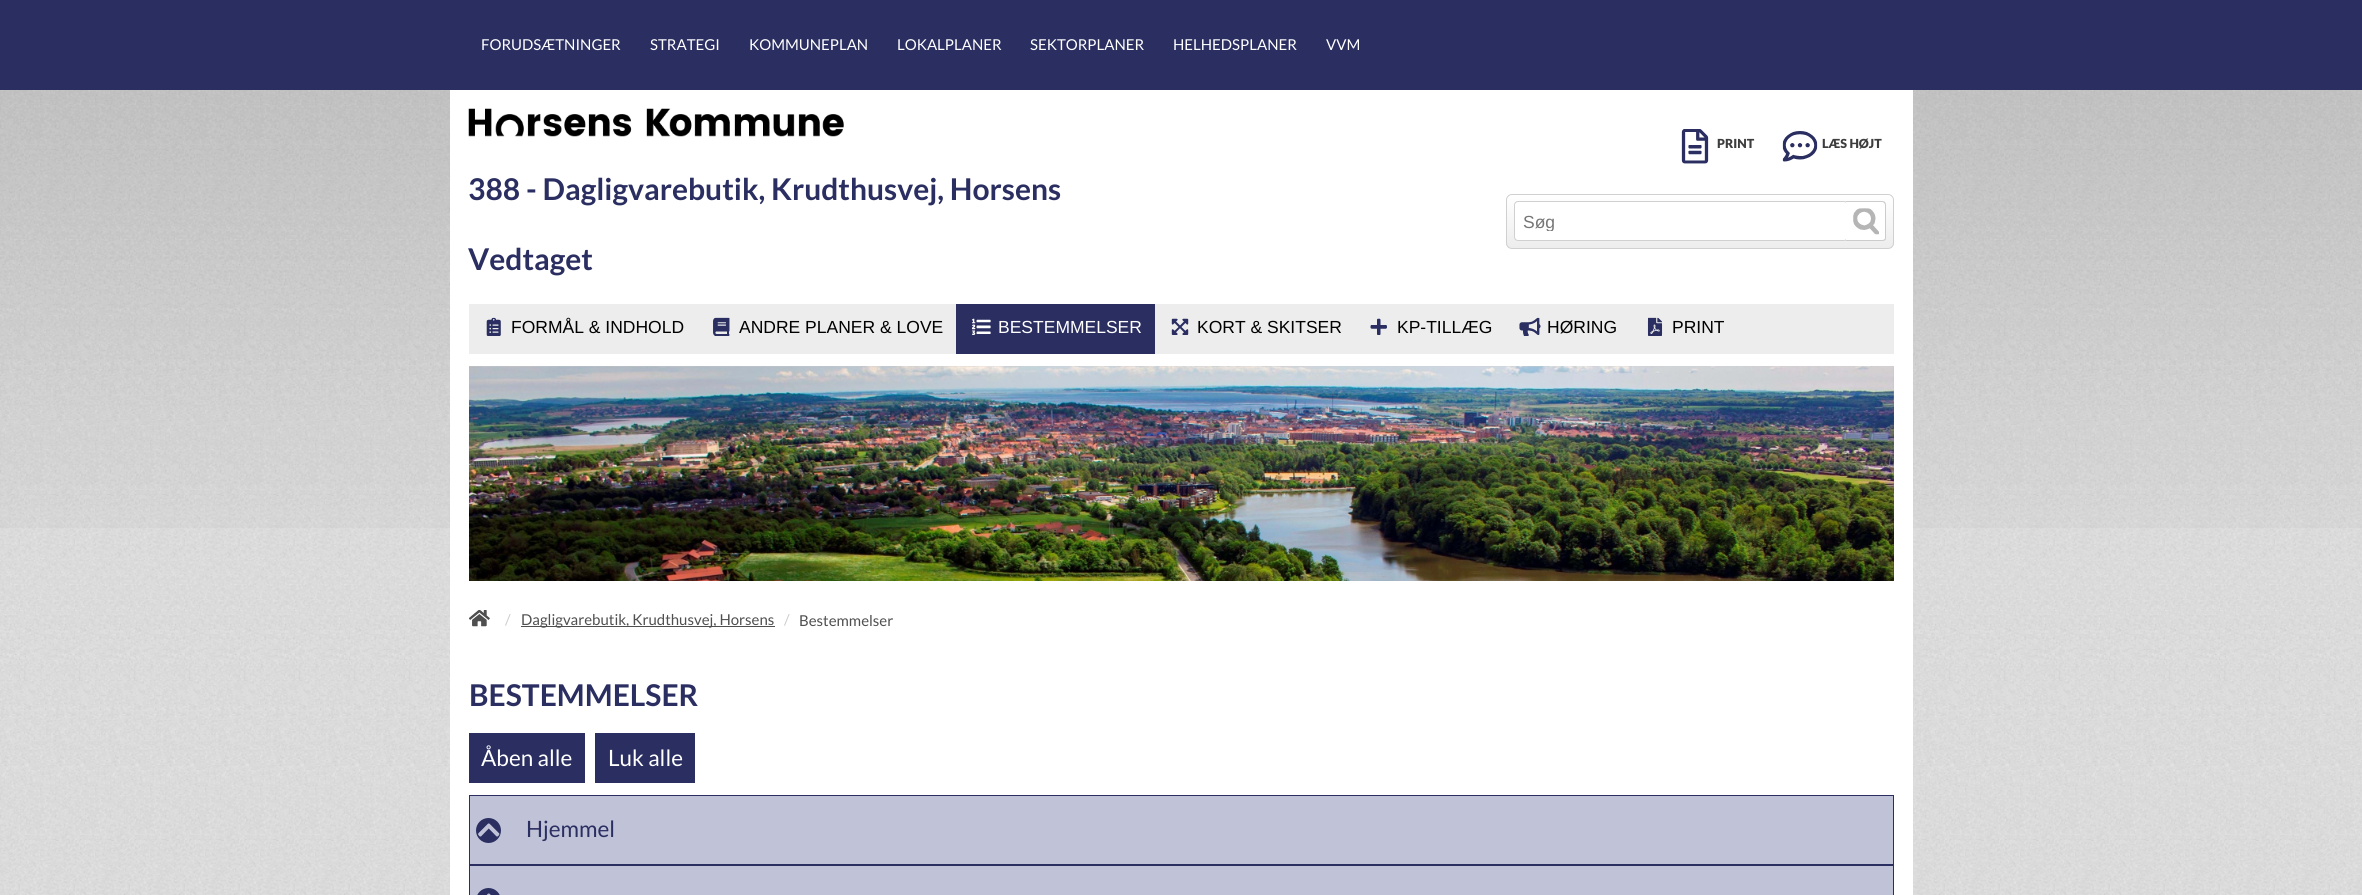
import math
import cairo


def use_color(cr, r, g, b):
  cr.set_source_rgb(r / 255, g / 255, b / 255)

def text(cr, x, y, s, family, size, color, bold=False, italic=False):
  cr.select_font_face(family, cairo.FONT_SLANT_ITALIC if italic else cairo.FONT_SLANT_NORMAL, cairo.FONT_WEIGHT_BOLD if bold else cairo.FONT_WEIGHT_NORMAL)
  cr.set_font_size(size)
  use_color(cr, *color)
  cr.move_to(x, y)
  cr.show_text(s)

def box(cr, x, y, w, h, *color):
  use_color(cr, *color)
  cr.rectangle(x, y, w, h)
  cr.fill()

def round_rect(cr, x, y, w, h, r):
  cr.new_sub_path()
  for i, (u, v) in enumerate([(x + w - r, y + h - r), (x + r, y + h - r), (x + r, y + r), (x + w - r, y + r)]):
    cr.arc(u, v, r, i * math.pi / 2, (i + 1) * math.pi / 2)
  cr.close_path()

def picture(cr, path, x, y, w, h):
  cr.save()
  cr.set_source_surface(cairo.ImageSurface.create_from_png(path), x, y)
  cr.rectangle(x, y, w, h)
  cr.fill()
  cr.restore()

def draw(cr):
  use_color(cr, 255, 255, 255)
  cr.paint()
  picture(cr, "img_01.png", 0, 90, 2362, 805)
  picture(cr, "img_02.png", 0, 90, 2362, 438)
  box(cr, 0, 0, 2362, 90, 42, 46, 96)
  box(cr, 450, 90, 1463, 276, 255, 255, 255)
  picture(cr, "img_03.png", 468, 108, 376, 29)
  picture(cr, "img_04.png", 1681, 129, 28, 35)
  picture(cr, "img_05.png", 1782, 131, 36, 31)
  cr.save()
  round_rect(cr, 1506, 194, 388, 55, 6)
  cr.clip()
  gradient = cairo.LinearGradient(1700, 195, 1700, 248)
  gradient.add_color_stop_rgba(0, 1, 1, 1, 1)
  gradient.add_color_stop_rgba(1, 0.929, 0.929, 0.929, 1)
  cr.set_source(gradient)
  cr.rectangle(1506, 195, 388, 53)
  cr.fill()
  cr.restore()
  round_rect(cr, 1506.5, 194.5, 387, 54, 5.5)
  use_color(cr, 208, 208, 208)
  cr.set_line_width(1)
  cr.stroke()
  use_color(cr, 255, 255, 255)
  round_rect(cr, 1514.5, 201.5, 333, 39, 3.5)
  cr.fill_preserve()
  use_color(cr, 208, 208, 208)
  cr.stroke()
  use_color(cr, 255, 255, 255)
  cr.new_path()
  cr.move_to(1846, 201)
  cr.line_to(1882, 201)
  cr.curve_to(1884, 201, 1886, 203, 1886, 205)
  cr.line_to(1886, 237)
  cr.curve_to(1886, 239, 1884, 241, 1882, 241)
  cr.line_to(1846, 241)
  cr.close_path()
  cr.fill()
  use_color(cr, 204, 204, 204)
  cr.set_fill_rule(cairo.FILL_RULE_EVEN_ODD)
  cr.new_path()
  cr.move_to(1846, 201)
  cr.line_to(1882, 201)
  cr.curve_to(1885, 201, 1886, 203, 1886, 205)
  cr.line_to(1886, 238)
  cr.curve_to(1886, 240, 1885, 241, 1882, 241)
  cr.line_to(1846, 241)
  cr.close_path()
  cr.move_to(1846, 202)
  cr.line_to(1882, 202)
  cr.curve_to(1884, 202, 1885, 204, 1885, 205)
  cr.line_to(1885, 238)
  cr.curve_to(1885, 239, 1884, 240, 1882, 240)
  cr.line_to(1846, 240)
  cr.close_path()
  cr.fill()
  picture(cr, "img_06.png", 1853, 208, 26, 27)
  box(cr, 469, 304, 1425, 50, 237, 237, 237)
  picture(cr, "img_07.png", 486, 317, 15, 19)
  picture(cr, "img_08.png", 713, 317, 17, 19)
  box(cr, 956, 304, 199, 50, 42, 46, 96)
  picture(cr, "img_09.png", 972, 318, 19, 17)
  picture(cr, "img_10.png", 1171, 318, 18, 17)
  picture(cr, "img_11.png", 1370, 318, 17, 17)
  picture(cr, "img_12.png", 1519, 317, 22, 19)
  picture(cr, "img_13.png", 1647, 317, 16, 19)
  picture(cr, "img_14.png", 469, 366, 1425, 215)
  box(cr, 1894, 366, 19, 215, 255, 255, 255)
  box(cr, 450, 366, 19, 215, 255, 255, 255)
  box(cr, 450, 581, 1463, 314, 255, 255, 255)
  picture(cr, "img_15.png", 469, 610, 21, 17)
  box(cr, 521, 626, 254, 1, 79, 79, 79)
  box(cr, 469, 733, 116, 50, 42, 46, 96)
  box(cr, 595, 733, 100, 50, 42, 46, 96)
  cr.rectangle(469.5, 795.5, 1424, 69)
  cr.stroke()
  box(cr, 470, 796, 1423, 68, 192, 194, 216)
  use_color(cr, 42, 46, 96)
  cr.arc(488.5, 830.5, 12.5, 0, 2 * math.pi)
  cr.fill()
  picture(cr, "img_16.png", 478, 823, 22, 14)
  cr.rectangle(469.5, 865.5, 1424, 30)
  cr.stroke()
  box(cr, 470, 866, 1423, 29, 192, 194, 216)
  use_color(cr, 42, 46, 96)
  round_rect(cr, 476, 888, 25, 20, 12.5)
  cr.fill()
  picture(cr, "img_17.png", 486, 893, 5, 2)
  text(cr, 481, 50, "FORUDSÆTNINGER", "Lato", 15, (255, 255, 255))
  text(cr, 650, 50, "STRATEGI", "Lato", 15, (255, 255, 255))
  text(cr, 749, 50, "KOMMUNEPLAN", "Lato", 15, (255, 255, 255))
  text(cr, 897, 50, "LOKALPLANER", "Lato", 15, (255, 255, 255))
  text(cr, 1030, 50, "SEKTORPLANER", "Lato", 15, (255, 255, 255))
  text(cr, 1173, 50, "HELHEDSPLANER", "Lato", 15, (255, 255, 255))
  text(cr, 1326, 50, "VVM", "Lato", 15, (255, 255, 255))
  text(cr, 468, 200, "388 - Dagligvarebutik, Krudthusvej, Horsens", "Lato", 30, (42, 46, 96), bold=True)
  text(cr, 468, 270, "Vedtaget", "Lato", 30, (42, 46, 96), bold=True)
  text(cr, 1717, 148, "PRINT", "Lato Black", 12.5, (61, 61, 61))
  text(cr, 1822, 148, "LÆS HØJT", "Lato Black", 12.5, (61, 61, 61))
  cr.save()
  cr.set_fill_rule(cairo.FILL_RULE_WINDING)
  cr.rectangle(1523, 211, 311, 20)
  cr.clip()
  text(cr, 1523, 228, "Søg", "Liberation Sans", 17.5, (117, 117, 117))
  cr.restore()
  text(cr, 511, 333, "FORMÅL & INDHOLD", "Liberation Sans", 17.5, (0, 0, 0))
  text(cr, 739, 333, "ANDRE PLANER & LOVE", "Liberation Sans", 17.5, (0, 0, 0))
  text(cr, 998, 333, "BESTEMMELSER", "Liberation Sans", 17.5, (255, 255, 255))
  text(cr, 1197, 333, "KORT & SKITSER", "Liberation Sans", 17.5, (0, 0, 0))
  text(cr, 1397, 333, "KP-TILLÆG", "Liberation Sans", 17.5, (0, 0, 0))
  text(cr, 1547, 333, "HØRING", "Liberation Sans", 17.5, (0, 0, 0))
  text(cr, 1672, 333, "PRINT", "Liberation Sans", 17.5, (0, 0, 0))
  text(cr, 505, 625, "/", "Lato", 15, (204, 204, 204))
  text(cr, 521, 625, "Dagligvarebutik, Krudthusvej, Horsens", "Lato", 15, (79, 79, 79))
  text(cr, 784, 625, "/", "Lato", 15, (204, 204, 204))
  text(cr, 799, 626, "Bestemmelser", "Lato", 15, (79, 79, 79))
  text(cr, 469, 706, "BESTEMMELSER", "Lato", 30, (42, 46, 96), bold=True)
  text(cr, 481, 766, "Åben alle", "Lato", 22.5, (255, 255, 255))
  text(cr, 608, 766, "Luk alle", "Lato", 22.5, (255, 255, 255))
  text(cr, 526, 837, "Hjemmel", "Lato", 22.5, (42, 46, 96))


surface = cairo.ImageSurface(cairo.FORMAT_RGB24, 2362, 895)
cr = cairo.Context(surface)
options = cairo.FontOptions()
options.set_hint_metrics(cairo.HINT_METRICS_OFF)
options.set_hint_style(cairo.HINT_STYLE_NONE)
cr.set_font_options(options)
cr.set_miter_limit(4)
draw(cr)
surface.write_to_png("out.png")
